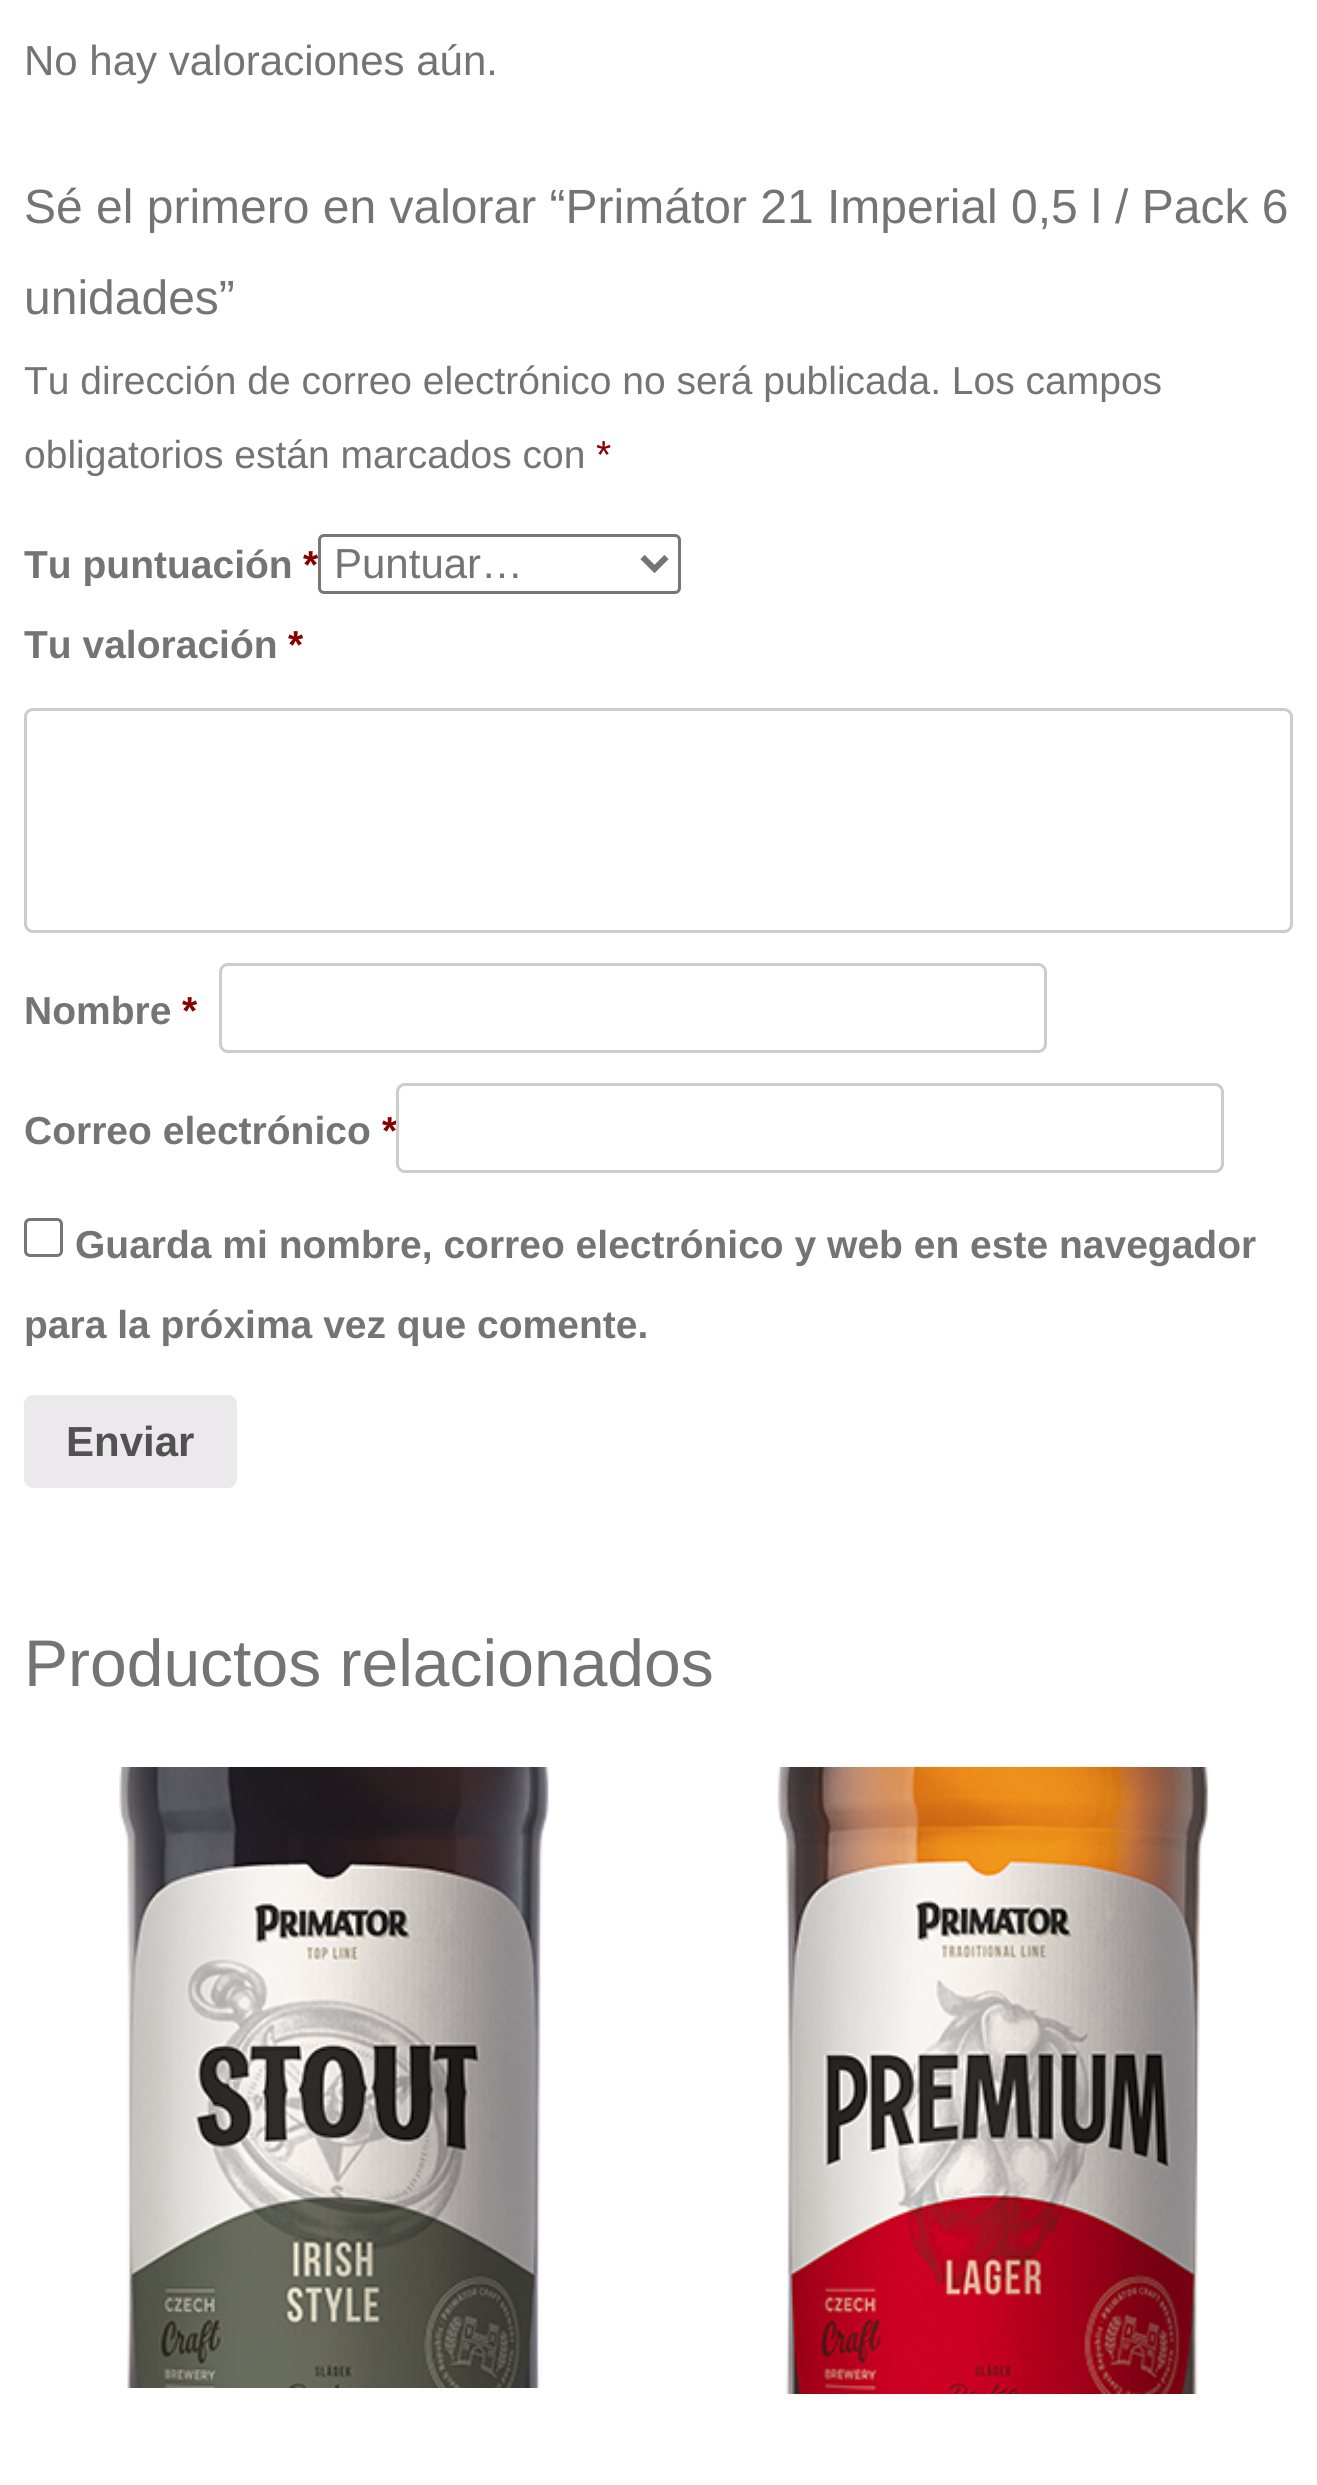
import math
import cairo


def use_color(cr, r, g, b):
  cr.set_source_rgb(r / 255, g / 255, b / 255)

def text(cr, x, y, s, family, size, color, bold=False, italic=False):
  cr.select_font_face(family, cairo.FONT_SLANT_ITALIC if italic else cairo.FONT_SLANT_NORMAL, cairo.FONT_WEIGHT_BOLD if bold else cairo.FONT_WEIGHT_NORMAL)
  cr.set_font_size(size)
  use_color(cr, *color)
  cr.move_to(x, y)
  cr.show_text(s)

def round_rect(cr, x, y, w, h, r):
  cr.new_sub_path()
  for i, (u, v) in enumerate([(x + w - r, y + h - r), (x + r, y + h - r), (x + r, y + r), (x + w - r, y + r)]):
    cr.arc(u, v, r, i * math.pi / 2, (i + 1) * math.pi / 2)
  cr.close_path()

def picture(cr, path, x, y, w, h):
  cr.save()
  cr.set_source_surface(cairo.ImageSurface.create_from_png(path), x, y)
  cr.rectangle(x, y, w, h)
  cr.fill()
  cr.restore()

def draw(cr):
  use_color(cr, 255, 255, 255)
  cr.paint()
  round_rect(cr, 25.5, 709.5, 1266, 222, 7.5)
  use_color(cr, 204, 204, 204)
  cr.set_line_width(3)
  cr.stroke()
  round_rect(cr, 220.5, 964.5, 825, 87, 7.5)
  cr.stroke()
  round_rect(cr, 25.5, 1219.5, 36, 36, 4.5)
  use_color(cr, 118, 118, 118)
  cr.stroke()
  use_color(cr, 235, 233, 235)
  round_rect(cr, 24, 1395, 213, 93, 9)
  cr.fill()
  picture(cr, "img_01.png", 119, 1767, 430, 621)
  picture(cr, "img_02.png", 777, 1767, 432, 627)
  text(cr, 24, 75, "No hay valoraciones aún.", "Liberation Sans", 42, (116, 116, 116))
  text(cr, 24, 223, "Sé el primero en valorar “Primátor 21 Imperial 0,5 l / Pack 6", "Liberation Sans", 48, (116, 116, 116))
  text(cr, 24, 314, "unidades”", "Liberation Sans", 48, (116, 116, 116))
  text(cr, 24, 394, "Tu dirección de correo electrónico no será publicada. Los campos", "Liberation Sans", 39, (116, 116, 116))
  text(cr, 24, 468, "obligatorios están marcados con", "Liberation Sans", 39, (116, 116, 116))
  text(cr, 596, 468, "*", "Liberation Sans", 39, (136, 0, 0))
  text(cr, 24, 578, "Tu puntuación", "Liberation Sans", 39, (116, 116, 116), bold=True)
  text(cr, 303, 578, "*", "Liberation Sans", 39, (136, 0, 0), bold=True)
  use_color(cr, 255, 255, 255)
  round_rect(cr, 319.5, 535.5, 360, 57, 4.5)
  cr.fill_preserve()
  use_color(cr, 118, 118, 118)
  cr.stroke()
  cr.new_path()
  cr.move_to(642.5, 557)
  cr.line_to(654.5, 569)
  cr.line_to(666.5, 557)
  use_color(cr, 116, 116, 116)
  cr.set_line_width(6)
  cr.stroke()
  text(cr, 334, 578, "Puntuar…", "Liberation Sans", 42, (116, 116, 116))
  text(cr, 24, 658, "Tu valoración", "Liberation Sans", 39, (116, 116, 116), bold=True)
  text(cr, 288, 658, "*", "Liberation Sans", 39, (136, 0, 0), bold=True)
  text(cr, 24, 1024, "Nombre", "Liberation Sans", 39, (116, 116, 116), bold=True)
  text(cr, 182, 1024, "*", "Liberation Sans", 39, (136, 0, 0), bold=True)
  text(cr, 24, 1144, "Correo electrónico", "Liberation Sans", 39, (116, 116, 116), bold=True)
  text(cr, 382, 1144, "*", "Liberation Sans", 39, (136, 0, 0), bold=True)
  cr.set_source_rgba(1, 1, 1, 0.3)
  round_rect(cr, 397.5, 1084.5, 825, 87, 7.5)
  cr.fill_preserve()
  use_color(cr, 204, 204, 204)
  cr.set_line_width(3)
  cr.stroke()
  text(cr, 75, 1258, "Guarda mi nombre, correo electrónico y web en este navegador", "Liberation Sans", 39, (116, 116, 116), bold=True)
  text(cr, 24, 1338, "para la próxima vez que comente.", "Liberation Sans", 39, (116, 116, 116), bold=True)
  text(cr, 66, 1456, "Enviar", "Liberation Sans", 42, (81, 81, 81), bold=True)
  text(cr, 24, 1686, "Productos relacionados", "Liberation Sans", 66, (116, 116, 116))


surface = cairo.ImageSurface(cairo.FORMAT_RGB24, 1317, 2485)
cr = cairo.Context(surface)
options = cairo.FontOptions()
options.set_hint_metrics(cairo.HINT_METRICS_OFF)
options.set_hint_style(cairo.HINT_STYLE_NONE)
cr.set_font_options(options)
cr.set_miter_limit(4)
draw(cr)
surface.write_to_png("out.png")
